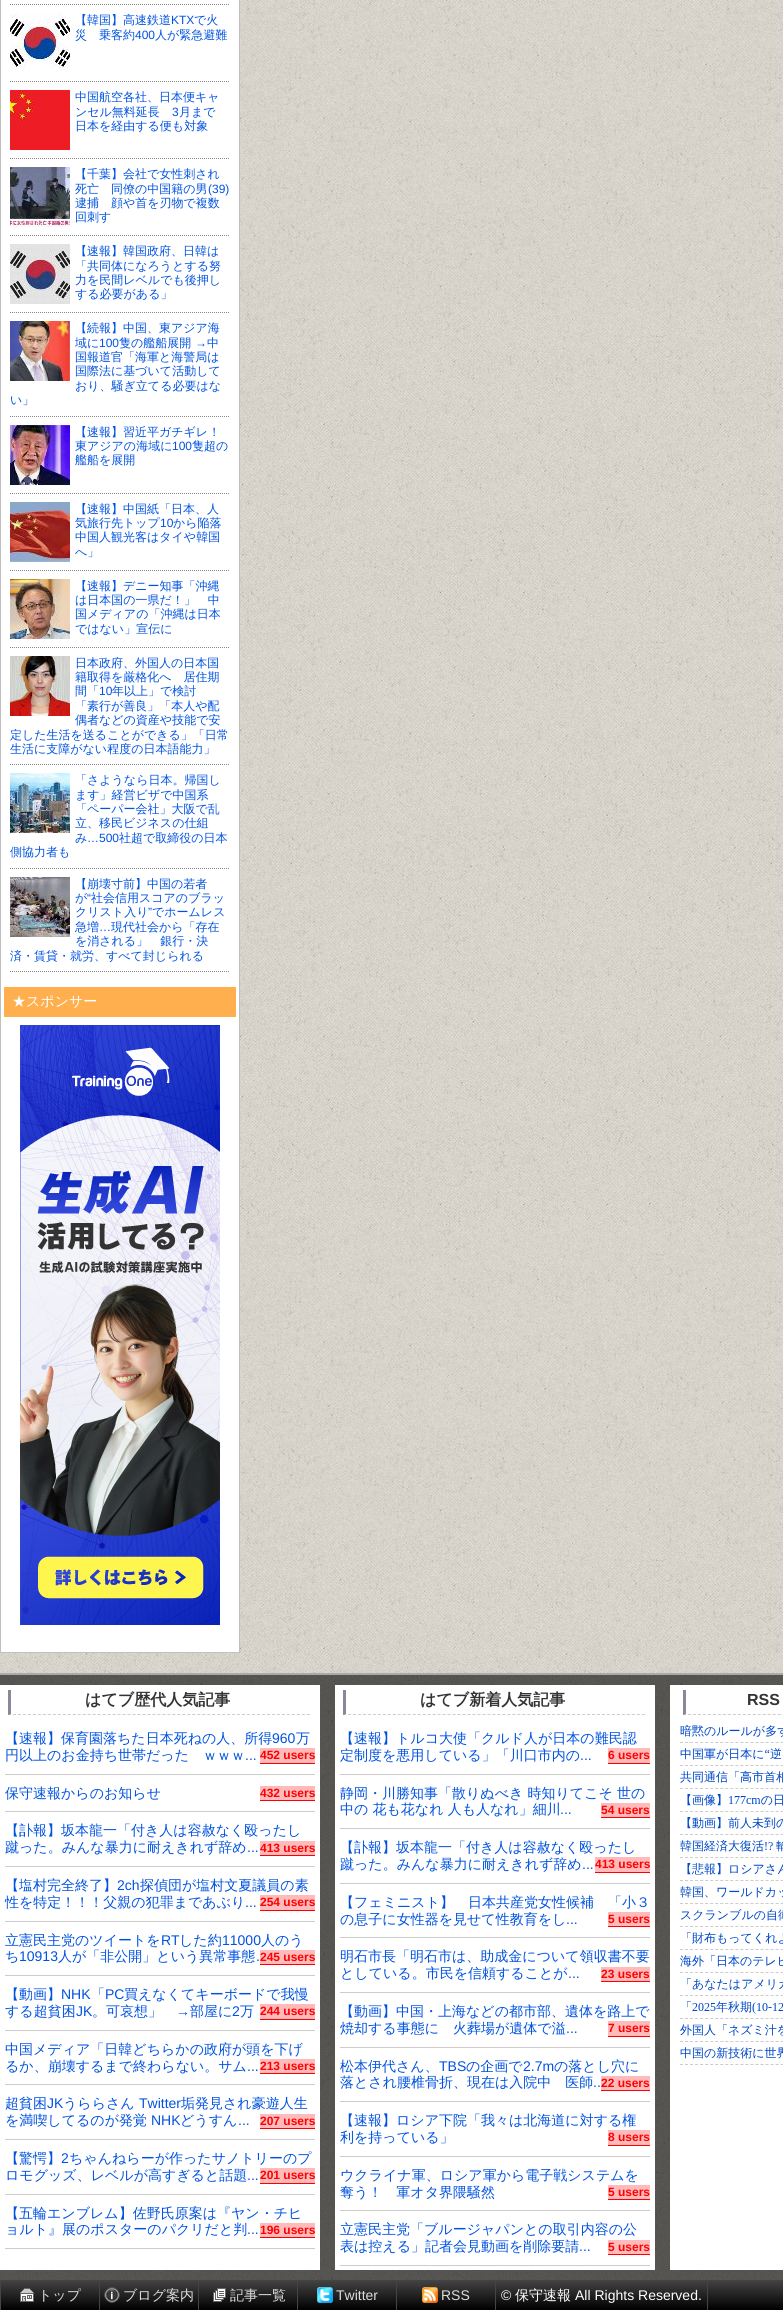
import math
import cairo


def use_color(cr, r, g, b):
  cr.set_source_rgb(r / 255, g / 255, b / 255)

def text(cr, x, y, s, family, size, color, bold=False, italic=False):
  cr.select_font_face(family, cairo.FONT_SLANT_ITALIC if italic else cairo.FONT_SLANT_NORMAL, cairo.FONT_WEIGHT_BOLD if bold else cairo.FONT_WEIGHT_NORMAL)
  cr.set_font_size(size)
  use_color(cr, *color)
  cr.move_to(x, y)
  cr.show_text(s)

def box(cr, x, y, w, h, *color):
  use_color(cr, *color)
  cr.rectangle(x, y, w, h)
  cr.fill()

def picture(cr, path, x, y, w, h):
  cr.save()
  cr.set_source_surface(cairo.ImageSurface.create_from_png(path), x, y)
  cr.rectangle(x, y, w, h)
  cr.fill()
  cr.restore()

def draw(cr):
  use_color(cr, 255, 255, 255)
  cr.paint()
  picture(cr, "img_01.png", 0, 0, 783, 2280)
  use_color(cr, 255, 255, 255)
  cr.rectangle(0.5, -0.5, 239, 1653)
  cr.fill_preserve()
  use_color(cr, 192, 192, 192)
  cr.set_line_width(1)
  cr.stroke()
  cr.new_path()
  cr.move_to(10, 4.5)
  cr.line_to(230, 4.5)
  use_color(cr, 136, 136, 136)
  cr.set_dash([1, 1])
  cr.stroke()
  cr.new_path()
  cr.move_to(10, 81.5)
  cr.line_to(230, 81.5)
  cr.stroke()
  picture(cr, "img_02.png", 10, 13, 60, 56)
  cr.new_path()
  cr.move_to(10, 158.5)
  cr.line_to(230, 158.5)
  cr.stroke()
  picture(cr, "img_03.png", 10, 90, 60, 60)
  cr.new_path()
  cr.move_to(10, 235.5)
  cr.line_to(230, 235.5)
  cr.stroke()
  picture(cr, "img_04.png", 10, 167, 60, 60)
  cr.new_path()
  cr.move_to(10, 312.5)
  cr.line_to(230, 312.5)
  cr.stroke()
  picture(cr, "img_05.png", 10, 244, 60, 60)
  cr.new_path()
  cr.move_to(10, 416.5)
  cr.line_to(230, 416.5)
  cr.stroke()
  picture(cr, "img_06.png", 10, 321, 60, 60)
  cr.new_path()
  cr.move_to(10, 493.5)
  cr.line_to(230, 493.5)
  cr.stroke()
  picture(cr, "img_07.png", 10, 425, 60, 60)
  cr.new_path()
  cr.move_to(10, 570.5)
  cr.line_to(230, 570.5)
  cr.stroke()
  picture(cr, "img_08.png", 10, 502, 60, 60)
  cr.new_path()
  cr.move_to(10, 647.5)
  cr.line_to(230, 647.5)
  cr.stroke()
  picture(cr, "img_09.png", 10, 579, 60, 60)
  cr.new_path()
  cr.move_to(10, 764.5)
  cr.line_to(230, 764.5)
  cr.stroke()
  picture(cr, "img_10.png", 10, 656, 60, 60)
  cr.new_path()
  cr.move_to(10, 868.5)
  cr.line_to(230, 868.5)
  cr.stroke()
  picture(cr, "img_11.png", 10, 773, 60, 60)
  cr.new_path()
  cr.move_to(10, 971.5)
  cr.line_to(230, 971.5)
  cr.stroke()
  picture(cr, "img_12.png", 10, 877, 60, 60)
  box(cr, 4, 987, 232, 30, 255, 175, 77)
  picture(cr, "img_13.png", 20, 1025, 200, 600)
  cr.set_source_rgba(0, 0, 0, 0.6)
  cr.rectangle(0, 1675, 783, 605)
  cr.fill()
  box(cr, 0, 1673, 783, 2, 170, 170, 170)
  box(cr, 0, 1685, 320, 585, 255, 255, 255)
  cr.new_path()
  cr.move_to(8, 1714.5)
  cr.line_to(310, 1714.5)
  use_color(cr, 204, 204, 204)
  cr.set_dash([3, 1.98])
  cr.stroke()
  use_color(cr, 136, 136, 153)
  cr.new_path()
  cr.move_to(8, 1715)
  cr.line_to(8, 1690)
  cr.line_to(11, 1690)
  cr.line_to(11, 1714)
  cr.close_path()
  cr.fill()
  box(cr, 5, 1774, 310, 1, 204, 204, 204)
  box(cr, 260, 1748, 55, 15, 255, 187, 187)
  box(cr, 260, 1763, 55, 1, 255, 0, 0)
  box(cr, 5, 1811, 310, 1, 204, 204, 204)
  box(cr, 260, 1786, 55, 14, 255, 187, 187)
  box(cr, 260, 1800, 55, 1, 255, 0, 0)
  box(cr, 5, 1866, 310, 1, 204, 204, 204)
  box(cr, 260, 1841, 55, 14, 255, 187, 187)
  box(cr, 260, 1855, 55, 1, 255, 0, 0)
  box(cr, 5, 1921, 310, 1, 204, 204, 204)
  box(cr, 260, 1895, 55, 15, 255, 187, 187)
  box(cr, 260, 1910, 55, 1, 255, 0, 0)
  box(cr, 5, 1975, 310, 1, 204, 204, 204)
  box(cr, 260, 1950, 55, 14, 255, 187, 187)
  box(cr, 260, 1964, 55, 1, 255, 0, 0)
  box(cr, 5, 2030, 310, 1, 204, 204, 204)
  box(cr, 260, 2004, 55, 15, 255, 187, 187)
  box(cr, 260, 2019, 55, 1, 255, 0, 0)
  box(cr, 5, 2084, 310, 1, 204, 204, 204)
  box(cr, 260, 2059, 55, 14, 255, 187, 187)
  box(cr, 260, 2073, 55, 1, 255, 0, 0)
  box(cr, 5, 2139, 310, 1, 204, 204, 204)
  box(cr, 260, 2114, 55, 14, 255, 187, 187)
  box(cr, 260, 2128, 55, 1, 255, 0, 0)
  box(cr, 5, 2194, 310, 1, 204, 204, 204)
  box(cr, 260, 2168, 55, 15, 255, 187, 187)
  box(cr, 260, 2183, 55, 1, 255, 0, 0)
  box(cr, 5, 2248, 310, 1, 204, 204, 204)
  box(cr, 260, 2223, 55, 14, 255, 187, 187)
  box(cr, 260, 2237, 55, 1, 255, 0, 0)
  box(cr, 335, 1685, 320, 585, 255, 255, 255)
  cr.new_path()
  cr.move_to(343, 1714.5)
  cr.line_to(645, 1714.5)
  use_color(cr, 204, 204, 204)
  cr.stroke()
  use_color(cr, 136, 136, 153)
  cr.new_path()
  cr.move_to(343, 1715)
  cr.line_to(343, 1690)
  cr.line_to(346, 1690)
  cr.line_to(346, 1714)
  cr.close_path()
  cr.fill()
  box(cr, 340, 1774, 310, 1, 204, 204, 204)
  box(cr, 608, 1748, 42, 15, 255, 187, 187)
  box(cr, 608, 1763, 42, 1, 255, 0, 0)
  box(cr, 340, 1828, 310, 1, 204, 204, 204)
  box(cr, 601, 1803, 49, 14, 255, 187, 187)
  box(cr, 601, 1817, 49, 1, 255, 0, 0)
  box(cr, 340, 1883, 310, 1, 204, 204, 204)
  box(cr, 595, 1857, 55, 15, 255, 187, 187)
  box(cr, 595, 1872, 55, 1, 255, 0, 0)
  box(cr, 340, 1937, 310, 1, 204, 204, 204)
  box(cr, 608, 1912, 42, 14, 255, 187, 187)
  box(cr, 608, 1926, 42, 1, 255, 0, 0)
  box(cr, 340, 1992, 310, 1, 204, 204, 204)
  box(cr, 601, 1967, 49, 14, 255, 187, 187)
  box(cr, 601, 1981, 49, 1, 255, 0, 0)
  box(cr, 340, 2047, 310, 1, 204, 204, 204)
  box(cr, 608, 2021, 42, 15, 255, 187, 187)
  box(cr, 608, 2036, 42, 1, 255, 0, 0)
  box(cr, 340, 2101, 310, 1, 204, 204, 204)
  box(cr, 601, 2076, 49, 14, 255, 187, 187)
  box(cr, 601, 2090, 49, 1, 255, 0, 0)
  box(cr, 340, 2156, 310, 1, 204, 204, 204)
  box(cr, 608, 2130, 42, 15, 255, 187, 187)
  box(cr, 608, 2145, 42, 1, 255, 0, 0)
  box(cr, 340, 2210, 310, 1, 204, 204, 204)
  box(cr, 608, 2185, 42, 14, 255, 187, 187)
  box(cr, 608, 2199, 42, 1, 255, 0, 0)
  box(cr, 340, 2265, 310, 1, 204, 204, 204)
  box(cr, 608, 2240, 42, 14, 255, 187, 187)
  box(cr, 608, 2254, 42, 1, 255, 0, 0)
  box(cr, 670, 1685, 113, 585, 255, 255, 255)
  cr.new_path()
  cr.move_to(683, 1714.5)
  cr.line_to(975, 1714.5)
  use_color(cr, 204, 204, 204)
  cr.stroke()
  use_color(cr, 136, 136, 153)
  cr.new_path()
  cr.move_to(683, 1715)
  cr.line_to(683, 1690)
  cr.line_to(686, 1690)
  cr.line_to(686, 1714)
  cr.close_path()
  cr.fill()
  picture(cr, "img_14.png", 680, 1724, 103, 341)
  gradient = cairo.LinearGradient(495, 2280, 495, 2310)
  gradient.add_color_stop_rgba(0, 0.267, 0.267, 0.267, 1)
  gradient.add_color_stop_rgba(0.5, 0.133, 0.133, 0.133, 1)
  gradient.add_color_stop_rgba(1, 0, 0, 0, 1)
  cr.set_source(gradient)
  cr.rectangle(1, 2280, 782, 30)
  cr.fill()
  box(cr, 0, 2280, 1, 30, 68, 68, 68)
  picture(cr, "img_15.png", 20, 2288, 14, 14)
  box(cr, 99, 2280, 1, 30, 68, 68, 68)
  picture(cr, "img_16.png", 104, 2287, 16, 16)
  box(cr, 198, 2280, 1, 30, 68, 68, 68)
  picture(cr, "img_17.png", 213, 2288, 13, 14)
  box(cr, 297, 2280, 1, 30, 68, 68, 68)
  picture(cr, "img_18.png", 317, 2287, 16, 16)
  box(cr, 396, 2280, 1, 30, 68, 68, 68)
  picture(cr, "img_19.png", 422, 2287, 16, 16)
  box(cr, 707, 2280, 1, 30, 68, 68, 68)
  box(cr, 495, 2280, 1, 30, 68, 68, 68)
  text(cr, 75, 24, "【韓国】高速鉄道", "WenQuanYi Zen Hei Medium", 12, (0, 82, 225))
  text(cr, 171, 24, "KTX", "Liberation Sans", 12, (0, 82, 225))
  text(cr, 194, 24, "で火", "WenQuanYi Zen Hei Medium", 12, (0, 82, 225))
  text(cr, 75, 39, "災　乗客約", "WenQuanYi Zen Hei Medium", 12, (0, 82, 225))
  text(cr, 135, 39, "400", "Liberation Sans", 12, (0, 82, 225))
  text(cr, 155, 39, "人が緊急避難", "WenQuanYi Zen Hei Medium", 12, (0, 82, 225))
  text(cr, 75, 101, "中国航空各社、日本便キャ", "WenQuanYi Zen Hei Medium", 12, (0, 82, 225))
  text(cr, 75, 116, "ンセル無料延長", "WenQuanYi Zen Hei Medium", 12, (0, 82, 225))
  text(cr, 172, 116, "3", "Liberation Sans", 12, (0, 82, 225))
  text(cr, 179, 116, "月まで", "WenQuanYi Zen Hei Medium", 12, (0, 82, 225))
  text(cr, 75, 130, "日本を経由する便も対象", "WenQuanYi Zen Hei Medium", 12, (0, 82, 225))
  text(cr, 75, 178, "【千葉】会社で女性刺され", "WenQuanYi Zen Hei Medium", 12, (0, 82, 225))
  text(cr, 75, 193, "死亡　同僚の中国籍の男", "WenQuanYi Zen Hei Medium", 12, (0, 82, 225))
  text(cr, 208, 193, "(39)", "Liberation Sans", 12, (0, 82, 225))
  text(cr, 75, 207, "逮捕　顔や首を刃物で複数", "WenQuanYi Zen Hei Medium", 12, (0, 82, 225))
  text(cr, 75, 221, "回刺す", "WenQuanYi Zen Hei Medium", 12, (0, 82, 225))
  text(cr, 75, 255, "【速報】韓国政府、日韓は", "WenQuanYi Zen Hei Medium", 12, (0, 82, 225))
  text(cr, 75, 270, "「共同体になろうとする努", "WenQuanYi Zen Hei Medium", 12, (0, 82, 225))
  text(cr, 75, 284, "力を民間レベルでも後押し", "WenQuanYi Zen Hei Medium", 12, (0, 82, 225))
  text(cr, 75, 298, "する必要がある」", "WenQuanYi Zen Hei Medium", 12, (0, 82, 225))
  text(cr, 75, 332, "【続報】中国、東アジア海", "WenQuanYi Zen Hei Medium", 12, (0, 82, 225))
  text(cr, 75, 347, "域に", "WenQuanYi Zen Hei Medium", 12, (0, 82, 225))
  text(cr, 99, 347, "100", "Liberation Sans", 12, (0, 82, 225))
  text(cr, 119, 347, "隻の艦船展開", "WenQuanYi Zen Hei Medium", 12, (0, 82, 225))
  text(cr, 195, 347, "→", "Liberation Sans", 12, (0, 82, 225))
  text(cr, 207, 347, "中", "WenQuanYi Zen Hei Medium", 12, (0, 82, 225))
  text(cr, 75, 361, "国報道官「海軍と海警局は", "WenQuanYi Zen Hei Medium", 12, (0, 82, 225))
  text(cr, 75, 375, "国際法に基づいて活動して", "WenQuanYi Zen Hei Medium", 12, (0, 82, 225))
  text(cr, 75, 390, "おり、騒ぎ立てる必要はな", "WenQuanYi Zen Hei Medium", 12, (0, 82, 225))
  text(cr, 10, 404, "い」", "WenQuanYi Zen Hei Medium", 12, (0, 82, 225))
  text(cr, 75, 436, "【速報】習近平ガチギレ！", "WenQuanYi Zen Hei Medium", 12, (0, 82, 225))
  text(cr, 75, 450, "東アジアの海域に", "WenQuanYi Zen Hei Medium", 12, (0, 82, 225))
  text(cr, 172, 450, "100", "Liberation Sans", 12, (0, 82, 225))
  text(cr, 192, 450, "隻超の", "WenQuanYi Zen Hei Medium", 12, (0, 82, 225))
  text(cr, 75, 464, "艦船を展開", "WenQuanYi Zen Hei Medium", 12, (0, 82, 225))
  text(cr, 75, 513, "【速報】中国紙「日本、人", "WenQuanYi Zen Hei Medium", 12, (0, 82, 225))
  text(cr, 75, 527, "気旅行先トップ", "WenQuanYi Zen Hei Medium", 12, (0, 82, 225))
  text(cr, 160, 527, "10", "Liberation Sans", 12, (0, 82, 225))
  text(cr, 173, 527, "から陥落", "WenQuanYi Zen Hei Medium", 12, (0, 82, 225))
  text(cr, 75, 541, "中国人観光客はタイや韓国", "WenQuanYi Zen Hei Medium", 12, (0, 82, 225))
  text(cr, 75, 556, "へ」", "WenQuanYi Zen Hei Medium", 12, (0, 82, 225))
  text(cr, 75, 590, "【速報】デニー知事「沖縄", "WenQuanYi Zen Hei Medium", 12, (0, 82, 225))
  text(cr, 75, 604, "は日本国の一県だ！」　中", "WenQuanYi Zen Hei Medium", 12, (0, 82, 225))
  text(cr, 75, 618, "国メディアの「沖縄は日本", "WenQuanYi Zen Hei Medium", 12, (0, 82, 225))
  text(cr, 75, 633, "ではない」宣伝に", "WenQuanYi Zen Hei Medium", 12, (0, 82, 225))
  text(cr, 75, 667, "日本政府、外国人の日本国", "WenQuanYi Zen Hei Medium", 12, (0, 82, 225))
  text(cr, 75, 681, "籍取得を厳格化へ　居住期", "WenQuanYi Zen Hei Medium", 12, (0, 82, 225))
  text(cr, 75, 695, "間「", "WenQuanYi Zen Hei Medium", 12, (0, 82, 225))
  text(cr, 99, 695, "10", "Liberation Sans", 12, (0, 82, 225))
  text(cr, 112, 695, "年以上」で検討", "WenQuanYi Zen Hei Medium", 12, (0, 82, 225))
  text(cr, 75, 710, "「素行が善良」「本人や配", "WenQuanYi Zen Hei Medium", 12, (0, 82, 225))
  text(cr, 75, 724, "偶者などの資産や技能で安", "WenQuanYi Zen Hei Medium", 12, (0, 82, 225))
  text(cr, 10, 739, "定した生活を送ることができる」「日常", "WenQuanYi Zen Hei Medium", 12, (0, 82, 225))
  text(cr, 10, 753, "生活に支障がない程度の日本語能力」", "WenQuanYi Zen Hei Medium", 12, (0, 82, 225))
  text(cr, 75, 784, "「さようなら日本。帰国し", "WenQuanYi Zen Hei Medium", 12, (0, 82, 225))
  text(cr, 75, 799, "ます」経営ビザで中国系", "WenQuanYi Zen Hei Medium", 12, (0, 82, 225))
  text(cr, 75, 813, "「ペーパー会社」大阪で乱", "WenQuanYi Zen Hei Medium", 12, (0, 82, 225))
  text(cr, 75, 827, "立、移民ビジネスの仕組", "WenQuanYi Zen Hei Medium", 12, (0, 82, 225))
  text(cr, 75, 842, "み", "WenQuanYi Zen Hei Medium", 12, (0, 82, 225))
  text(cr, 87, 842, "…500", "Liberation Sans", 12, (0, 82, 225))
  text(cr, 119, 842, "社超で取締役の日本", "WenQuanYi Zen Hei Medium", 12, (0, 82, 225))
  text(cr, 10, 856, "側協力者も", "WenQuanYi Zen Hei Medium", 12, (0, 82, 225))
  text(cr, 75, 888, "【崩壊寸前】中国の若者", "WenQuanYi Zen Hei Medium", 12, (0, 82, 225))
  text(cr, 75, 902, "が", "WenQuanYi Zen Hei Medium", 12, (0, 82, 225))
  text(cr, 87, 902, "“", "Liberation Sans", 12, (0, 82, 225))
  text(cr, 91, 902, "社会信用スコアのブラッ", "WenQuanYi Zen Hei Medium", 12, (0, 82, 225))
  text(cr, 75, 916, "クリスト入り", "WenQuanYi Zen Hei Medium", 12, (0, 82, 225))
  text(cr, 148, 916, "”", "Liberation Sans", 12, (0, 82, 225))
  text(cr, 152, 916, "でホームレス", "WenQuanYi Zen Hei Medium", 12, (0, 82, 225))
  text(cr, 75, 931, "急増", "WenQuanYi Zen Hei Medium", 12, (0, 82, 225))
  text(cr, 99, 931, "…", "Liberation Sans", 12, (0, 82, 225))
  text(cr, 111, 931, "現代社会から「存在", "WenQuanYi Zen Hei Medium", 12, (0, 82, 225))
  text(cr, 75, 945, "を消される」　銀行・決", "WenQuanYi Zen Hei Medium", 12, (0, 82, 225))
  text(cr, 10, 960, "済・賃貸・就労、すべて封じられる", "WenQuanYi Zen Hei Medium", 12, (0, 82, 225))
  text(cr, 12, 1006, "★スポンサー", "WenQuanYi Zen Hei Medium", 14, (255, 255, 255))
  text(cr, 85, 1705, "はてブ歴代人気記事", "WenQuanYi Zen Hei", 16, (51, 51, 51), bold=True)
  text(cr, 5, 1743, "【速報】保育園落ちた日本死ねの人、所得", "WenQuanYi Zen Hei Medium", 14, (0, 82, 225))
  text(cr, 272, 1743, "960", "Liberation Sans", 14, (0, 82, 225))
  text(cr, 296, 1743, "万", "WenQuanYi Zen Hei Medium", 14, (0, 82, 225))
  text(cr, 5, 1760, "円以上のお金持ち世帯だった　ｗｗｗ", "WenQuanYi Zen Hei Medium", 14, (0, 82, 225))
  text(cr, 245, 1760, "...", "Liberation Sans", 14, (0, 82, 225))
  text(cr, 260, 1759, "452 users", "Liberation Sans", 12, (255, 0, 0), bold=True)
  text(cr, 5, 1798, "保守速報からのお知らせ", "WenQuanYi Zen Hei Medium", 14, (0, 82, 225))
  text(cr, 260, 1797, "432 users", "Liberation Sans", 12, (255, 0, 0), bold=True)
  text(cr, 5, 1835, "【訃報】坂本龍一「付き人は容赦なく殴ったし", "WenQuanYi Zen Hei Medium", 14, (0, 82, 225))
  text(cr, 5, 1852, "蹴った。みんな暴力に耐えきれず辞め", "WenQuanYi Zen Hei Medium", 14, (0, 82, 225))
  text(cr, 247, 1852, "...", "Liberation Sans", 14, (0, 82, 225))
  text(cr, 260, 1852, "413 users", "Liberation Sans", 12, (255, 0, 0), bold=True)
  text(cr, 5, 1890, "【塩村完全終了】", "WenQuanYi Zen Hei Medium", 14, (0, 82, 225))
  text(cr, 117, 1890, "2ch", "Liberation Sans", 14, (0, 82, 225))
  text(cr, 140, 1890, "探偵団が塩村文夏議員の素", "WenQuanYi Zen Hei Medium", 14, (0, 82, 225))
  text(cr, 5, 1907, "性を特定！！！父親の犯罪まであぶり", "WenQuanYi Zen Hei Medium", 14, (0, 82, 225))
  text(cr, 245, 1907, "...", "Liberation Sans", 14, (0, 82, 225))
  text(cr, 260, 1906, "254 users", "Liberation Sans", 12, (255, 0, 0), bold=True)
  text(cr, 5, 1945, "立憲民主党のツイートを", "WenQuanYi Zen Hei Medium", 14, (0, 82, 225))
  text(cr, 161, 1945, "RT", "Liberation Sans", 14, (0, 82, 225))
  text(cr, 179, 1945, "した約", "WenQuanYi Zen Hei Medium", 14, (0, 82, 225))
  text(cr, 222, 1945, "11000", "Liberation Sans", 14, (0, 82, 225))
  text(cr, 261, 1945, "人のう", "WenQuanYi Zen Hei Medium", 14, (0, 82, 225))
  text(cr, 5, 1961, "ち", "WenQuanYi Zen Hei Medium", 14, (0, 82, 225))
  text(cr, 19, 1961, "10913", "Liberation Sans", 14, (0, 82, 225))
  text(cr, 58, 1961, "人が「非公開」という異常事態", "WenQuanYi Zen Hei Medium", 14, (0, 82, 225))
  text(cr, 256, 1961, ".", "Liberation Sans", 14, (0, 82, 225))
  text(cr, 260, 1961, "245 users", "Liberation Sans", 12, (255, 0, 0), bold=True)
  text(cr, 5, 1999, "【動画】", "WenQuanYi Zen Hei Medium", 14, (0, 82, 225))
  text(cr, 61, 1999, "NHK", "Liberation Sans", 14, (0, 82, 225))
  text(cr, 91, 1999, "「", "WenQuanYi Zen Hei Medium", 14, (0, 82, 225))
  text(cr, 105, 1999, "PC", "Liberation Sans", 14, (0, 82, 225))
  text(cr, 124, 1999, "買えなくてキーボードで我慢", "WenQuanYi Zen Hei Medium", 14, (0, 82, 225))
  text(cr, 5, 2016, "する超貧困", "WenQuanYi Zen Hei Medium", 14, (0, 82, 225))
  text(cr, 76, 2016, "JK", "Liberation Sans", 14, (0, 82, 225))
  text(cr, 92, 2016, "。可哀想」", "WenQuanYi Zen Hei Medium", 14, (0, 82, 225))
  text(cr, 176, 2016, "→", "Liberation Sans", 14, (0, 82, 225))
  text(cr, 190, 2016, "部屋に", "WenQuanYi Zen Hei Medium", 14, (0, 82, 225))
  text(cr, 232, 2016, "2", "Liberation Sans", 14, (0, 82, 225))
  text(cr, 240, 2016, "万", "WenQuanYi Zen Hei Medium", 14, (0, 82, 225))
  text(cr, 260, 2015, "244 users", "Liberation Sans", 12, (255, 0, 0), bold=True)
  text(cr, 5, 2054, "中国メディア「日韓どちらかの政府が頭を下げ", "WenQuanYi Zen Hei Medium", 14, (0, 82, 225))
  text(cr, 5, 2071, "るか、崩壊するまで終わらない。サム", "WenQuanYi Zen Hei Medium", 14, (0, 82, 225))
  text(cr, 247, 2071, "...", "Liberation Sans", 14, (0, 82, 225))
  text(cr, 260, 2070, "213 users", "Liberation Sans", 12, (255, 0, 0), bold=True)
  text(cr, 5, 2108, "超貧困", "WenQuanYi Zen Hei Medium", 14, (0, 82, 225))
  text(cr, 47, 2108, "JK", "Liberation Sans", 14, (0, 82, 225))
  text(cr, 63, 2108, "うららさん", "WenQuanYi Zen Hei Medium", 14, (0, 82, 225))
  text(cr, 139, 2108, "Twitter", "Liberation Sans", 14, (0, 82, 225))
  text(cr, 181, 2108, "垢発見され豪遊人生", "WenQuanYi Zen Hei Medium", 14, (0, 82, 225))
  text(cr, 5, 2125, "を満喫してるのが発覚", "WenQuanYi Zen Hei Medium", 14, (0, 82, 225))
  text(cr, 151, 2125, "NHK", "Liberation Sans", 14, (0, 82, 225))
  text(cr, 180, 2125, "どうすん", "WenQuanYi Zen Hei Medium", 14, (0, 82, 225))
  text(cr, 238, 2125, "...", "Liberation Sans", 14, (0, 82, 225))
  text(cr, 260, 2125, "207 users", "Liberation Sans", 12, (255, 0, 0), bold=True)
  text(cr, 5, 2163, "【驚愕】", "WenQuanYi Zen Hei Medium", 14, (0, 82, 225))
  text(cr, 61, 2163, "2", "Liberation Sans", 14, (0, 82, 225))
  text(cr, 69, 2163, "ちゃんねらーが作ったサノトリーのプ", "WenQuanYi Zen Hei Medium", 14, (0, 82, 225))
  text(cr, 5, 2180, "ロモグッズ、レベルが高すぎると話題", "WenQuanYi Zen Hei Medium", 14, (0, 82, 225))
  text(cr, 247, 2180, "...", "Liberation Sans", 14, (0, 82, 225))
  text(cr, 260, 2179, "201 users", "Liberation Sans", 12, (255, 0, 0), bold=True)
  text(cr, 5, 2218, "【五輪エンブレム】佐野氏原案は『ヤン・チヒ", "WenQuanYi Zen Hei Medium", 14, (0, 82, 225))
  text(cr, 5, 2234, "ョルト』展のポスターのパクリだと判", "WenQuanYi Zen Hei Medium", 14, (0, 82, 225))
  text(cr, 247, 2234, "...", "Liberation Sans", 14, (0, 82, 225))
  text(cr, 260, 2234, "196 users", "Liberation Sans", 12, (255, 0, 0), bold=True)
  text(cr, 420, 1705, "はてブ新着人気記事", "WenQuanYi Zen Hei", 16, (51, 51, 51), bold=True)
  text(cr, 340, 1743, "【速報】トルコ大使「クルド人が日本の難民認", "WenQuanYi Zen Hei Medium", 14, (0, 82, 225))
  text(cr, 340, 1760, "定制度を悪用している」「川口市内の", "WenQuanYi Zen Hei Medium", 14, (0, 82, 225))
  text(cr, 580, 1760, "...", "Liberation Sans", 14, (0, 82, 225))
  text(cr, 608, 1759, "6 users", "Liberation Sans", 12, (255, 0, 0), bold=True)
  text(cr, 340, 1798, "静岡・川勝知事「散りぬべき 時知りてこそ 世の", "WenQuanYi Zen Hei Medium", 14, (0, 82, 225))
  text(cr, 340, 1814, "中の 花も花なれ 人も人なれ」細川", "WenQuanYi Zen Hei Medium", 14, (0, 82, 225))
  text(cr, 560, 1814, "...", "Liberation Sans", 14, (0, 82, 225))
  text(cr, 601, 1814, "54 users", "Liberation Sans", 12, (255, 0, 0), bold=True)
  text(cr, 340, 1852, "【訃報】坂本龍一「付き人は容赦なく殴ったし", "WenQuanYi Zen Hei Medium", 14, (0, 82, 225))
  text(cr, 340, 1869, "蹴った。みんな暴力に耐えきれず辞め", "WenQuanYi Zen Hei Medium", 14, (0, 82, 225))
  text(cr, 582, 1869, "...", "Liberation Sans", 14, (0, 82, 225))
  text(cr, 595, 1868, "413 users", "Liberation Sans", 12, (255, 0, 0), bold=True)
  text(cr, 340, 1907, "【フェミニスト】　日本共産党女性候補　「小３", "WenQuanYi Zen Hei Medium", 14, (0, 82, 225))
  text(cr, 340, 1924, "の息子に女性器を見せて性教育をし", "WenQuanYi Zen Hei Medium", 14, (0, 82, 225))
  text(cr, 566, 1924, "...", "Liberation Sans", 14, (0, 82, 225))
  text(cr, 608, 1923, "5 users", "Liberation Sans", 12, (255, 0, 0), bold=True)
  text(cr, 340, 1961, "明石市長「明石市は、助成金について領収書不要", "WenQuanYi Zen Hei Medium", 14, (0, 82, 225))
  text(cr, 340, 1978, "としている。市民を信頼することが", "WenQuanYi Zen Hei Medium", 14, (0, 82, 225))
  text(cr, 568, 1978, "...", "Liberation Sans", 14, (0, 82, 225))
  text(cr, 601, 1978, "23 users", "Liberation Sans", 12, (255, 0, 0), bold=True)
  text(cr, 340, 2016, "【動画】中国・上海などの都市部、遺体を路上で", "WenQuanYi Zen Hei Medium", 14, (0, 82, 225))
  text(cr, 340, 2033, "焼却する事態に　火葬場が遺体で溢", "WenQuanYi Zen Hei Medium", 14, (0, 82, 225))
  text(cr, 566, 2033, "...", "Liberation Sans", 14, (0, 82, 225))
  text(cr, 608, 2032, "7 users", "Liberation Sans", 12, (255, 0, 0), bold=True)
  text(cr, 340, 2071, "松本伊代さん、", "WenQuanYi Zen Hei Medium", 14, (0, 82, 225))
  text(cr, 439, 2071, "TBS", "Liberation Sans", 14, (0, 82, 225))
  text(cr, 466, 2071, "の企画で", "WenQuanYi Zen Hei Medium", 14, (0, 82, 225))
  text(cr, 523, 2071, "2.7m", "Liberation Sans", 14, (0, 82, 225))
  text(cr, 554, 2071, "の落とし穴に", "WenQuanYi Zen Hei Medium", 14, (0, 82, 225))
  text(cr, 340, 2087, "落とされ腰椎骨折、現在は入院中　医師", "WenQuanYi Zen Hei Medium", 14, (0, 82, 225))
  text(cr, 593, 2087, "..", "Liberation Sans", 14, (0, 82, 225))
  text(cr, 601, 2087, "22 users", "Liberation Sans", 12, (255, 0, 0), bold=True)
  text(cr, 340, 2125, "【速報】ロシア下院「我々は北海道に対する権", "WenQuanYi Zen Hei Medium", 14, (0, 82, 225))
  text(cr, 340, 2142, "利を持っている」", "WenQuanYi Zen Hei Medium", 14, (0, 82, 225))
  text(cr, 608, 2141, "8 users", "Liberation Sans", 12, (255, 0, 0), bold=True)
  text(cr, 340, 2180, "ウクライナ軍、ロシア軍から電子戦システムを", "WenQuanYi Zen Hei Medium", 14, (0, 82, 225))
  text(cr, 340, 2197, "奪う！　軍オタ界隈騒然", "WenQuanYi Zen Hei Medium", 14, (0, 82, 225))
  text(cr, 608, 2196, "5 users", "Liberation Sans", 12, (255, 0, 0), bold=True)
  text(cr, 340, 2234, "立憲民主党「ブルージャパンとの取引内容の公", "WenQuanYi Zen Hei Medium", 14, (0, 82, 225))
  text(cr, 340, 2251, "表は控える」記者会見動画を削除要請", "WenQuanYi Zen Hei Medium", 14, (0, 82, 225))
  text(cr, 579, 2251, "...", "Liberation Sans", 14, (0, 82, 225))
  text(cr, 608, 2251, "5 users", "Liberation Sans", 12, (255, 0, 0), bold=True)
  text(cr, 747, 1705, "RSS", "Liberation Sans", 16, (51, 51, 51), bold=True)
  text(cr, 38, 2300, "トップ", "WenQuanYi Zen Hei Medium", 14, (221, 221, 221))
  text(cr, 123, 2300, "ブログ案内", "WenQuanYi Zen Hei Medium", 14, (221, 221, 221))
  text(cr, 230, 2300, "記事一覧", "WenQuanYi Zen Hei Medium", 14, (221, 221, 221))
  text(cr, 336, 2300, "Twitter", "Liberation Sans", 14, (221, 221, 221))
  text(cr, 441, 2300, "RSS", "Liberation Sans", 14, (221, 221, 221))
  text(cr, 501, 2300, "©", "Liberation Sans", 14, (255, 255, 255))
  text(cr, 515, 2300, "保守速報", "WenQuanYi Zen Hei Medium", 14, (255, 255, 255))
  text(cr, 575, 2300, "All Rights Reserved.", "Liberation Sans", 14, (255, 255, 255))


surface = cairo.ImageSurface(cairo.FORMAT_RGB24, 783, 2310)
cr = cairo.Context(surface)
options = cairo.FontOptions()
options.set_hint_metrics(cairo.HINT_METRICS_OFF)
options.set_hint_style(cairo.HINT_STYLE_NONE)
cr.set_font_options(options)
cr.set_miter_limit(4)
draw(cr)
surface.write_to_png("out.png")
